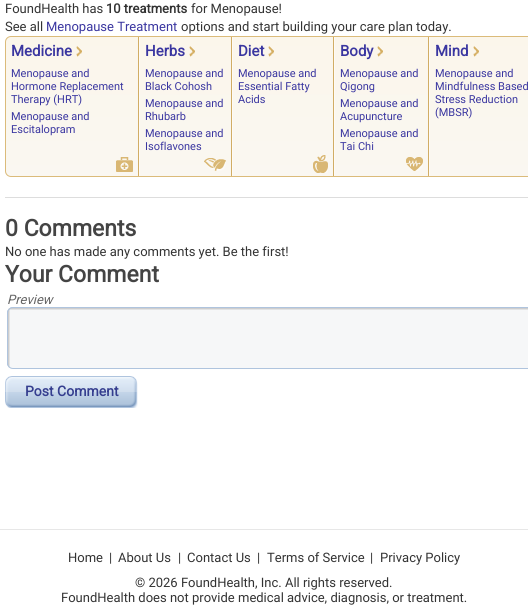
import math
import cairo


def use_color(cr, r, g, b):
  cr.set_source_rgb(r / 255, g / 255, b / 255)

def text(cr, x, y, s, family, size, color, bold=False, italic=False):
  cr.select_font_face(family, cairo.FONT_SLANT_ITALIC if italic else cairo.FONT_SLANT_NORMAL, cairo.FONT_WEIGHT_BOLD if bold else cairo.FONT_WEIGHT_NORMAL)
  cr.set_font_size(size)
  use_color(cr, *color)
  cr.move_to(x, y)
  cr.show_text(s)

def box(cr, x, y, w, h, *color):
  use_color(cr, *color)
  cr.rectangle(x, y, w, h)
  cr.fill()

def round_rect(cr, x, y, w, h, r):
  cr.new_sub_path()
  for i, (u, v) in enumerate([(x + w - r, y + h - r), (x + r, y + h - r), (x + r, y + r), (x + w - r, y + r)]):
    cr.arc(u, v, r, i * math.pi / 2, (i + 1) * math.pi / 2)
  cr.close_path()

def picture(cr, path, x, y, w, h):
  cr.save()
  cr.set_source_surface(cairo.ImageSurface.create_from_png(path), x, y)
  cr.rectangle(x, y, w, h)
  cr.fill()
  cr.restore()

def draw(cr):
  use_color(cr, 255, 255, 255)
  cr.paint()
  box(cr, 5, 197, 523, 1, 221, 221, 221)
  cr.save()
  round_rect(cr, 5, 36, 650, 141, 6)
  cr.clip()
  gradient = cairo.LinearGradient(6, 37, 6, 176)
  gradient.add_color_stop_rgba(0, 0.984, 0.965, 0.922, 1)
  gradient.add_color_stop_rgba(1, 0.98, 0.969, 0.945, 1)
  cr.set_source(gradient)
  cr.rectangle(5, 37, 523, 139)
  cr.fill()
  cr.restore()
  round_rect(cr, 5.5, 36.5, 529, 140, 5.5)
  use_color(cr, 219, 187, 122)
  cr.set_line_width(1)
  cr.stroke()
  box(cr, 138, 37, 1, 139, 209, 173, 101)
  picture(cr, "img_01.png", 76, 46, 6, 11)
  box(cr, 231, 37, 1, 139, 209, 173, 101)
  box(cr, 139, 37, 1, 139, 254, 251, 245)
  picture(cr, "img_01.png", 189, 46, 6, 11)
  box(cr, 333, 37, 1, 139, 209, 173, 101)
  box(cr, 232, 37, 1, 139, 254, 251, 245)
  picture(cr, "img_01.png", 268, 46, 6, 11)
  box(cr, 428, 37, 1, 139, 209, 173, 101)
  box(cr, 334, 37, 1, 139, 254, 251, 245)
  picture(cr, "img_01.png", 377, 46, 6, 11)
  box(cr, 429, 37, 1, 139, 254, 251, 245)
  picture(cr, "img_01.png", 473, 46, 6, 11)
  picture(cr, "img_02.png", 116, 157, 17, 15)
  picture(cr, "img_03.png", 204, 158, 22, 13)
  picture(cr, "img_04.png", 313, 155, 15, 18)
  picture(cr, "img_05.png", 406, 157, 17, 14)
  use_color(cr, 246, 247, 248)
  round_rect(cr, 7, 307, 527, 62, 6)
  cr.fill()
  picture(cr, "img_06.png", 7, 307, 521, 61)
  round_rect(cr, 7.5, 307.5, 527, 61, 5.5)
  use_color(cr, 175, 196, 222)
  cr.stroke()
  picture(cr, "img_07.png", 5, 376, 133, 32)
  box(cr, 0, 529, 528, 1, 231, 231, 231)
  text(cr, 5, 13, "FoundHealth has", "Roboto", 13, (51, 51, 51))
  text(cr, 106, 13, "10 treatments", "Roboto", 13, (51, 51, 51), bold=True)
  text(cr, 191, 13, "for Menopause!", "Roboto", 13, (51, 51, 51))
  text(cr, 5, 31, "See all", "Roboto", 13, (51, 51, 51))
  text(cr, 46, 31, "Menopause Treatment", "Roboto", 13, (58, 54, 160))
  text(cr, 181, 31, "options and start building your care plan today.", "Roboto", 13, (51, 51, 51))
  text(cr, 11, 56, "Medicine", "Roboto", 15, (58, 54, 160), bold=True)
  text(cr, 145, 56, "Herbs", "Roboto", 15, (58, 54, 160), bold=True)
  text(cr, 238, 56, "Diet", "Roboto", 15, (58, 54, 160), bold=True)
  text(cr, 340, 56, "Body", "Roboto", 15, (58, 54, 160), bold=True)
  text(cr, 435, 56, "Mind", "Roboto", 15, (58, 54, 160), bold=True)
  text(cr, 11, 77, "Menopause and", "Roboto", 11, (58, 54, 160))
  text(cr, 11, 90, "Hormone Replacement", "Roboto", 11, (58, 54, 160))
  text(cr, 11, 103, "Therapy (HRT)", "Roboto", 11, (58, 54, 160))
  text(cr, 11, 120, "Menopause and", "Roboto", 11, (58, 54, 160))
  text(cr, 11, 133, "Escitalopram", "Roboto", 11, (58, 54, 160))
  text(cr, 145, 77, "Menopause and", "Roboto", 11, (58, 54, 160))
  text(cr, 145, 90, "Black Cohosh", "Roboto", 11, (58, 54, 160))
  text(cr, 145, 107, "Menopause and", "Roboto", 11, (58, 54, 160))
  text(cr, 145, 120, "Rhubarb", "Roboto", 11, (58, 54, 160))
  text(cr, 145, 137, "Menopause and", "Roboto", 11, (58, 54, 160))
  text(cr, 145, 150, "Isoflavones", "Roboto", 11, (58, 54, 160))
  text(cr, 238, 77, "Menopause and", "Roboto", 11, (58, 54, 160))
  text(cr, 238, 90, "Essential Fatty", "Roboto", 11, (58, 54, 160))
  text(cr, 238, 103, "Acids", "Roboto", 11, (58, 54, 160))
  text(cr, 340, 77, "Menopause and", "Roboto", 11, (58, 54, 160))
  text(cr, 340, 90, "Qigong", "Roboto", 11, (58, 54, 160))
  text(cr, 340, 107, "Menopause and", "Roboto", 11, (58, 54, 160))
  text(cr, 340, 120, "Acupuncture", "Roboto", 11, (58, 54, 160))
  text(cr, 340, 137, "Menopause and", "Roboto", 11, (58, 54, 160))
  text(cr, 340, 150, "Tai Chi", "Roboto", 11, (58, 54, 160))
  text(cr, 435, 77, "Menopause and", "Roboto", 11, (58, 54, 160))
  text(cr, 435, 90, "Mindfulness Based", "Roboto", 11, (58, 54, 160))
  text(cr, 435, 103, "Stress Reduction", "Roboto", 11, (58, 54, 160))
  text(cr, 435, 116, "(MBSR)", "Roboto", 11, (58, 54, 160))
  text(cr, 5, 236, "0 Comments", "Roboto", 23, (68, 68, 68), bold=True)
  text(cr, 5, 256, "No one has made any comments yet. Be the first!", "Roboto", 13, (51, 51, 51))
  text(cr, 5, 282, "Your Comment", "Roboto", 23, (68, 68, 68), bold=True)
  text(cr, 7, 304, "Preview", "Roboto", 13, (102, 102, 102), italic=True)
  text(cr, 25, 396, "Post Comment", "Roboto", 14, (53, 62, 143), bold=True)
  text(cr, 68, 562, "Home", "Roboto", 13, (51, 51, 51))
  text(cr, 109, 562, "|", "Roboto", 13, (51, 51, 51))
  text(cr, 118, 562, "About Us", "Roboto", 13, (51, 51, 51))
  text(cr, 178, 562, "|", "Roboto", 13, (51, 51, 51))
  text(cr, 187, 562, "Contact Us", "Roboto", 13, (51, 51, 51))
  text(cr, 257, 562, "|", "Roboto", 13, (51, 51, 51))
  text(cr, 267, 562, "Terms of Service", "Roboto", 13, (51, 51, 51))
  text(cr, 370, 562, "|", "Roboto", 13, (51, 51, 51))
  text(cr, 380, 562, "Privacy Policy", "Roboto", 13, (51, 51, 51))
  text(cr, 135, 587, "© 2026 FoundHealth, Inc. All rights reserved.", "Roboto", 13, (51, 51, 51))
  text(cr, 61, 602, "FoundHealth does not provide medical advice, diagnosis, or treatment.", "Roboto", 13, (51, 51, 51))


surface = cairo.ImageSurface(cairo.FORMAT_RGB24, 528, 615)
cr = cairo.Context(surface)
options = cairo.FontOptions()
options.set_hint_metrics(cairo.HINT_METRICS_OFF)
options.set_hint_style(cairo.HINT_STYLE_NONE)
cr.set_font_options(options)
cr.set_miter_limit(4)
draw(cr)
surface.write_to_png("out.png")
